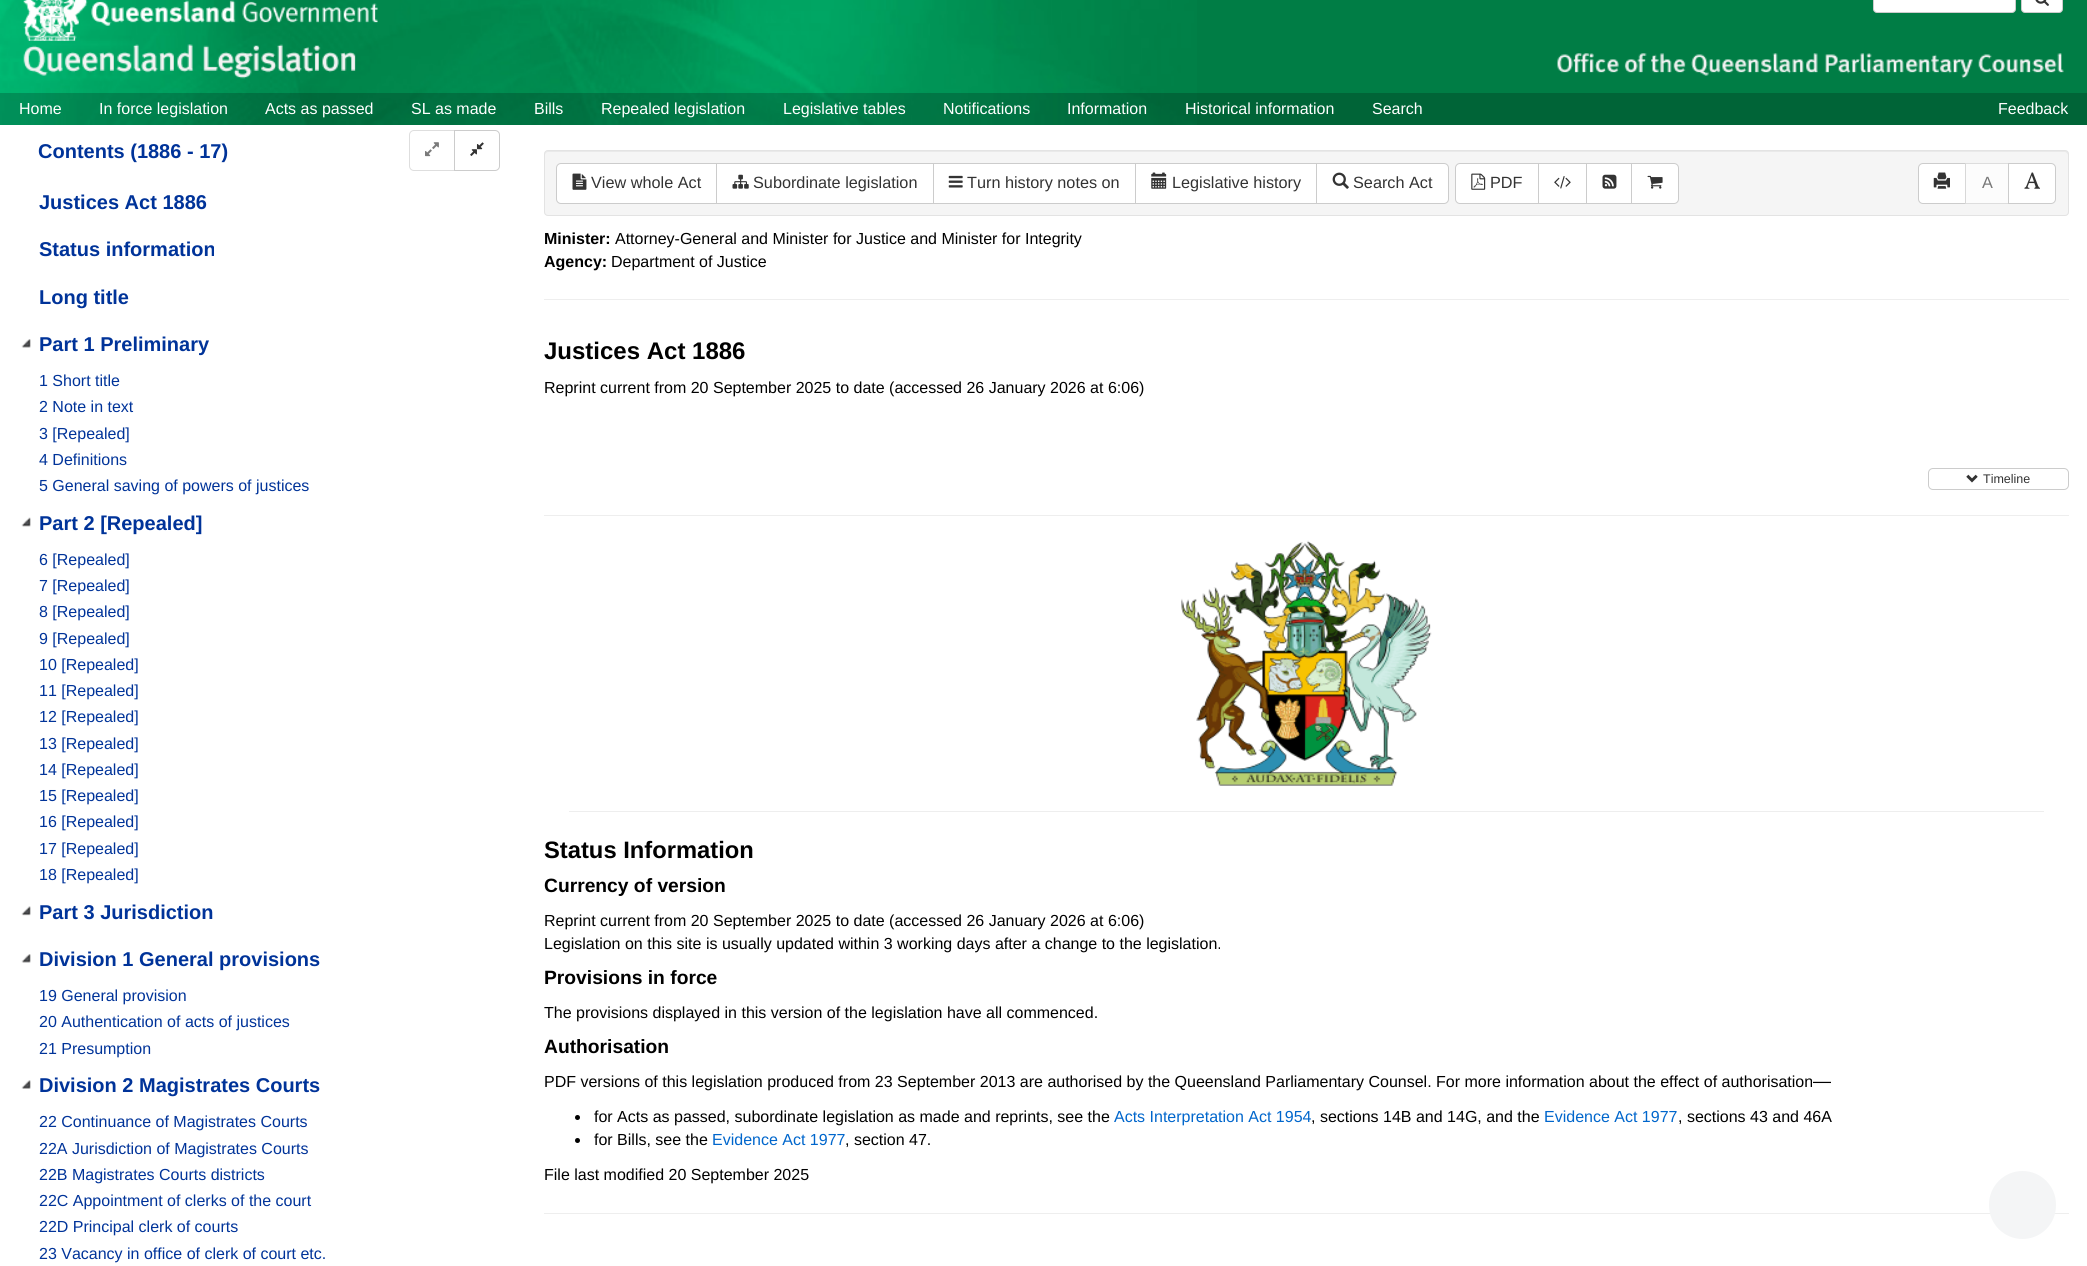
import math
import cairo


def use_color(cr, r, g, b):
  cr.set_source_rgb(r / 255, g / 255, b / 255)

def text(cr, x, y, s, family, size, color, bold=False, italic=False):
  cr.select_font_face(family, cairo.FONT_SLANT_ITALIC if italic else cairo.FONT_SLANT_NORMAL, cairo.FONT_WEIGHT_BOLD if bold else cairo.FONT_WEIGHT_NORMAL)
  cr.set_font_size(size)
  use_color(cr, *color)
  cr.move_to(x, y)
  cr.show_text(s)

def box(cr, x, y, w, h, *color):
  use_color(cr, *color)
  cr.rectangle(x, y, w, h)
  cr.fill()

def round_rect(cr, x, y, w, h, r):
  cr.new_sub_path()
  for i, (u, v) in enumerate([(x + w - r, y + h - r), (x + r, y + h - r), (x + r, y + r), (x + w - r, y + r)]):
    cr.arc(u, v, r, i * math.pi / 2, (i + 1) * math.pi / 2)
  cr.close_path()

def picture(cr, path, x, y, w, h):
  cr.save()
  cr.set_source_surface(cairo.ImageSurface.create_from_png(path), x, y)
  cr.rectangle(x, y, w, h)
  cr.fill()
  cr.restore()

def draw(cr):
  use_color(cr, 255, 255, 255)
  cr.paint()
  box(cr, 1197, 0, 890, 125, 0, 125, 69)
  picture(cr, "img_05.png", 0, 0, 1197, 125)
  picture(cr, "img_01.png", 23, 0, 355, 41)
  picture(cr, "img_02.png", 23, 44, 333, 35)
  use_color(cr, 255, 255, 255)
  round_rect(cr, 1873.5, -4.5, 142, 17, 3.5)
  cr.fill_preserve()
  use_color(cr, 204, 204, 204)
  cr.set_line_width(1)
  cr.stroke()
  use_color(cr, 255, 255, 255)
  round_rect(cr, 2021.5, -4.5, 41, 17, 3.5)
  cr.fill_preserve()
  use_color(cr, 204, 204, 204)
  cr.stroke()
  picture(cr, "img_03.png", 2035, 0, 14, 6)
  picture(cr, "img_04.png", 1557, 53, 507, 26)
  cr.set_source_rgba(0, 0, 0, 0.2)
  cr.rectangle(0, 93, 2087, 32)
  cr.fill()
  cr.new_path()
  cr.move_to(414, 130.5)
  cr.line_to(454.5, 130.5)
  cr.line_to(454.5, 170.5)
  cr.line_to(414, 170.5)
  cr.curve_to(411.5, 170.5, 409.5, 168.5, 409.5, 166)
  cr.line_to(409.5, 135)
  cr.curve_to(409.5, 132.5, 411.5, 130.5, 414, 130.5)
  cr.close_path()
  use_color(cr, 222, 222, 222)
  cr.stroke()
  picture(cr, "img_06.png", 425, 142, 14, 15)
  use_color(cr, 255, 255, 255)
  cr.new_path()
  cr.move_to(454.5, 130.5)
  cr.line_to(495, 130.5)
  cr.curve_to(497.5, 130.5, 499.5, 132.5, 499.5, 135)
  cr.line_to(499.5, 166)
  cr.curve_to(499.5, 168.5, 497.5, 170.5, 495, 170.5)
  cr.line_to(454.5, 170.5)
  cr.close_path()
  cr.fill_preserve()
  use_color(cr, 204, 204, 204)
  cr.stroke()
  picture(cr, "img_07.png", 470, 142, 14, 14)
  picture(cr, "img_08.png", 21, 339, 10, 9)
  picture(cr, "img_09.png", 21, 517, 10, 10)
  picture(cr, "img_10.png", 21, 906, 10, 10)
  picture(cr, "img_08.png", 21, 954, 10, 9)
  picture(cr, "img_11.png", 21, 1080, 10, 9)
  use_color(cr, 245, 245, 245)
  round_rect(cr, 544, 150, 1525, 66, 4)
  cr.fill()
  use_color(cr, 233, 233, 233)
  cr.new_path()
  cr.move_to(548, 152)
  cr.line_to(2065, 152)
  cr.curve_to(2066, 152, 2068, 154, 2068, 155)
  cr.line_to(2068, 154)
  cr.curve_to(2068, 152, 2067, 151, 2066, 151)
  cr.line_to(548, 151)
  cr.curve_to(546, 151, 545, 152, 545, 154)
  cr.line_to(545, 155)
  cr.curve_to(545, 154, 546, 152, 548, 152)
  cr.close_path()
  cr.fill()
  round_rect(cr, 544.5, 150.5, 1524, 65, 3.5)
  use_color(cr, 227, 227, 227)
  cr.stroke()
  use_color(cr, 255, 255, 255)
  cr.new_path()
  cr.move_to(561, 163.5)
  cr.line_to(717.5, 163.5)
  cr.line_to(717.5, 203.5)
  cr.line_to(561, 203.5)
  cr.curve_to(558.5, 203.5, 556.5, 201.5, 556.5, 199)
  cr.line_to(556.5, 168)
  cr.curve_to(556.5, 165.5, 558.5, 163.5, 561, 163.5)
  cr.close_path()
  cr.fill_preserve()
  use_color(cr, 204, 204, 204)
  cr.stroke()
  picture(cr, "img_12.png", 572, 173, 15, 17)
  use_color(cr, 255, 255, 255)
  cr.rectangle(716.5, 163.5, 217, 40)
  cr.fill_preserve()
  use_color(cr, 204, 204, 204)
  cr.stroke()
  picture(cr, "img_13.png", 732, 174, 17, 15)
  use_color(cr, 255, 255, 255)
  cr.rectangle(933.5, 163.5, 202, 40)
  cr.fill_preserve()
  use_color(cr, 204, 204, 204)
  cr.stroke()
  picture(cr, "img_14.png", 948, 175, 15, 13)
  box(cr, 1136, 164, 180, 39, 255, 255, 255)
  cr.rectangle(1135.5, 163.5, 182, 40)
  use_color(cr, 204, 204, 204)
  cr.stroke()
  picture(cr, "img_15.png", 1151, 172, 16, 17)
  use_color(cr, 255, 255, 255)
  cr.new_path()
  cr.move_to(1316.5, 163.5)
  cr.line_to(1444, 163.5)
  cr.curve_to(1446.5, 163.5, 1448.5, 165.5, 1448.5, 168)
  cr.line_to(1448.5, 199)
  cr.curve_to(1448.5, 201.5, 1446.5, 203.5, 1444, 203.5)
  cr.line_to(1316.5, 203.5)
  cr.close_path()
  cr.fill_preserve()
  use_color(cr, 204, 204, 204)
  cr.stroke()
  picture(cr, "img_16.png", 1332, 172, 17, 17)
  use_color(cr, 255, 255, 255)
  cr.new_path()
  cr.move_to(1460, 163.5)
  cr.line_to(1538.5, 163.5)
  cr.line_to(1538.5, 203.5)
  cr.line_to(1460, 203.5)
  cr.curve_to(1457.5, 203.5, 1455.5, 201.5, 1455.5, 199)
  cr.line_to(1455.5, 168)
  cr.curve_to(1455.5, 165.5, 1457.5, 163.5, 1460, 163.5)
  cr.close_path()
  cr.fill_preserve()
  use_color(cr, 204, 204, 204)
  cr.stroke()
  picture(cr, "img_17.png", 1471, 173, 15, 17)
  box(cr, 1539, 164, 47, 39, 255, 255, 255)
  cr.rectangle(1538.5, 163.5, 49, 40)
  use_color(cr, 204, 204, 204)
  cr.stroke()
  picture(cr, "img_18.png", 1554, 176, 17, 13)
  box(cr, 1587, 164, 44, 39, 255, 255, 255)
  cr.rectangle(1586.5, 163.5, 46, 40)
  use_color(cr, 204, 204, 204)
  cr.stroke()
  picture(cr, "img_19.png", 1602, 174, 15, 15)
  use_color(cr, 255, 255, 255)
  cr.new_path()
  cr.move_to(1631.5, 163.5)
  cr.line_to(1674, 163.5)
  cr.curve_to(1676.5, 163.5, 1678.5, 165.5, 1678.5, 168)
  cr.line_to(1678.5, 199)
  cr.curve_to(1678.5, 201.5, 1676.5, 203.5, 1674, 203.5)
  cr.line_to(1631.5, 203.5)
  cr.close_path()
  cr.fill_preserve()
  use_color(cr, 204, 204, 204)
  cr.stroke()
  picture(cr, "img_20.png", 1647, 175, 16, 14)
  use_color(cr, 255, 255, 255)
  cr.new_path()
  cr.move_to(1923, 163.5)
  cr.line_to(1965.5, 163.5)
  cr.line_to(1965.5, 203.5)
  cr.line_to(1923, 203.5)
  cr.curve_to(1920.5, 203.5, 1918.5, 201.5, 1918.5, 199)
  cr.line_to(1918.5, 168)
  cr.curve_to(1918.5, 165.5, 1920.5, 163.5, 1923, 163.5)
  cr.close_path()
  cr.fill_preserve()
  use_color(cr, 204, 204, 204)
  cr.stroke()
  picture(cr, "img_21.png", 1933, 172, 17, 17)
  cr.set_source_rgba(1, 1, 1, 0.65)
  cr.rectangle(1965, 163, 43, 41)
  cr.fill()
  cr.rectangle(1965.5, 163.5, 43, 40)
  cr.set_source_rgba(0.8, 0.8, 0.8, 0.65)
  cr.stroke()
  use_color(cr, 255, 255, 255)
  cr.new_path()
  cr.move_to(2008.5, 163.5)
  cr.line_to(2051, 163.5)
  cr.curve_to(2053.5, 163.5, 2055.5, 165.5, 2055.5, 168)
  cr.line_to(2055.5, 199)
  cr.curve_to(2055.5, 201.5, 2053.5, 203.5, 2051, 203.5)
  cr.line_to(2008.5, 203.5)
  cr.close_path()
  cr.fill_preserve()
  use_color(cr, 204, 204, 204)
  cr.stroke()
  picture(cr, "img_22.png", 2024, 172, 16, 17)
  box(cr, 544, 299, 1525, 1, 238, 238, 238)
  round_rect(cr, 1928.5, 468.5, 140, 21, 4.5)
  use_color(cr, 204, 204, 204)
  cr.stroke()
  picture(cr, "img_23.png", 1966, 474, 12, 9)
  box(cr, 544, 515, 1525, 1, 238, 238, 238)
  picture(cr, "img_24.png", 1181, 540, 251, 246)
  box(cr, 569, 811, 1475, 1, 238, 238, 238)
  use_color(cr, 0, 0, 0)
  cr.arc(577.5, 1117.5, 2.5, 0, 2 * math.pi)
  cr.fill()
  cr.arc(577.5, 1140.5, 2.5, 0, 2 * math.pi)
  cr.fill()
  box(cr, 544, 1213, 1525, 1, 238, 238, 238)
  use_color(cr, 244, 245, 246)
  round_rect(cr, 1989, 1171, 67, 68, 33.5)
  cr.fill()
  text(cr, 19, 114, "Home", "Liberation Sans", 16, (255, 255, 255))
  text(cr, 99, 114, "In force legislation", "Liberation Sans", 16, (255, 255, 255))
  text(cr, 265, 114, "Acts as passed", "Liberation Sans", 16, (255, 255, 255))
  text(cr, 411, 114, "SL as made", "Liberation Sans", 16, (255, 255, 255))
  text(cr, 534, 114, "Bills", "Liberation Sans", 16, (255, 255, 255))
  text(cr, 601, 114, "Repealed legislation", "Liberation Sans", 16, (255, 255, 255))
  text(cr, 783, 114, "Legislative tables", "Liberation Sans", 16, (255, 255, 255))
  text(cr, 943, 114, "Notifications", "Liberation Sans", 16, (255, 255, 255))
  text(cr, 1067, 114, "Information", "Liberation Sans", 16, (255, 255, 255))
  text(cr, 1185, 114, "Historical information", "Liberation Sans", 16, (255, 255, 255))
  text(cr, 1372, 114, "Search", "Liberation Sans", 16, (255, 255, 255))
  text(cr, 1998, 114, "Feedback", "Liberation Sans", 16, (255, 255, 255))
  text(cr, 38, 158, "Contents (1886 - 17)", "Liberation Sans", 20, (0, 51, 153), bold=True)
  text(cr, 39, 209, "Justices Act 1886", "Liberation Sans", 20, (0, 51, 153), bold=True)
  text(cr, 39, 256, "Status information", "Liberation Sans", 20, (0, 51, 153), bold=True)
  text(cr, 39, 304, "Long title", "Liberation Sans", 20, (0, 51, 153), bold=True)
  text(cr, 39, 351, "Part 1 Preliminary", "Liberation Sans", 20, (0, 51, 153), bold=True)
  text(cr, 39, 386, "1 Short title", "Liberation Sans", 16, (0, 51, 153))
  text(cr, 39, 412, "2 Note in text", "Liberation Sans", 16, (0, 51, 153))
  text(cr, 39, 439, "3 [Repealed]", "Liberation Sans", 16, (0, 51, 153))
  text(cr, 39, 465, "4 Definitions", "Liberation Sans", 16, (0, 51, 153))
  text(cr, 39, 491, "5 General saving of powers of justices", "Liberation Sans", 16, (0, 51, 153))
  text(cr, 39, 530, "Part 2 [Repealed]", "Liberation Sans", 20, (0, 51, 153), bold=True)
  text(cr, 39, 565, "6 [Repealed]", "Liberation Sans", 16, (0, 51, 153))
  text(cr, 39, 591, "7 [Repealed]", "Liberation Sans", 16, (0, 51, 153))
  text(cr, 39, 617, "8 [Repealed]", "Liberation Sans", 16, (0, 51, 153))
  text(cr, 39, 644, "9 [Repealed]", "Liberation Sans", 16, (0, 51, 153))
  text(cr, 39, 670, "10 [Repealed]", "Liberation Sans", 16, (0, 51, 153))
  text(cr, 39, 696, "11 [Repealed]", "Liberation Sans", 16, (0, 51, 153))
  text(cr, 39, 722, "12 [Repealed]", "Liberation Sans", 16, (0, 51, 153))
  text(cr, 39, 749, "13 [Repealed]", "Liberation Sans", 16, (0, 51, 153))
  text(cr, 39, 775, "14 [Repealed]", "Liberation Sans", 16, (0, 51, 153))
  text(cr, 39, 801, "15 [Repealed]", "Liberation Sans", 16, (0, 51, 153))
  text(cr, 39, 827, "16 [Repealed]", "Liberation Sans", 16, (0, 51, 153))
  text(cr, 39, 854, "17 [Repealed]", "Liberation Sans", 16, (0, 51, 153))
  text(cr, 39, 880, "18 [Repealed]", "Liberation Sans", 16, (0, 51, 153))
  text(cr, 39, 919, "Part 3 Jurisdiction", "Liberation Sans", 20, (0, 51, 153), bold=True)
  text(cr, 39, 966, "Division 1 General provisions", "Liberation Sans", 20, (0, 51, 153), bold=True)
  text(cr, 39, 1001, "19 General provision", "Liberation Sans", 16, (0, 51, 153))
  text(cr, 39, 1027, "20 Authentication of acts of justices", "Liberation Sans", 16, (0, 51, 153))
  text(cr, 39, 1054, "21 Presumption", "Liberation Sans", 16, (0, 51, 153))
  text(cr, 39, 1092, "Division 2 Magistrates Courts", "Liberation Sans", 20, (0, 51, 153), bold=True)
  text(cr, 39, 1127, "22 Continuance of Magistrates Courts", "Liberation Sans", 16, (0, 51, 153))
  text(cr, 39, 1154, "22A Jurisdiction of Magistrates Courts", "Liberation Sans", 16, (0, 51, 153))
  text(cr, 39, 1180, "22B Magistrates Courts districts", "Liberation Sans", 16, (0, 51, 153))
  text(cr, 39, 1206, "22C Appointment of clerks of the court", "Liberation Sans", 16, (0, 51, 153))
  text(cr, 39, 1232, "22D Principal clerk of courts", "Liberation Sans", 16, (0, 51, 153))
  text(cr, 39, 1259, "23 Vacancy in office of clerk of court etc.", "Liberation Sans", 16, (0, 51, 153))
  text(cr, 591, 188, "View whole Act", "Liberation Sans", 16.25, (51, 51, 51))
  text(cr, 753, 188, "Subordinate legislation", "Liberation Sans", 16.25, (51, 51, 51))
  text(cr, 967, 188, "Turn history notes on", "Liberation Sans", 16.25, (51, 51, 51))
  text(cr, 1172, 188, "Legislative history", "Liberation Sans", 16.25, (51, 51, 51))
  text(cr, 1353, 188, "Search Act", "Liberation Sans", 16.25, (51, 51, 51))
  text(cr, 1490, 188, "PDF", "Liberation Sans", 16.25, (51, 51, 51))
  text(cr, 1982, 188, "A", "Liberation Sans", 16.25, (119, 119, 119))
  text(cr, 544, 244, "Minister:", "Liberation Sans", 16, (0, 0, 0), bold=True)
  text(cr, 615, 244, "Attorney-General and Minister for Justice and Minister for Integrity", "Liberation Sans", 16, (0, 0, 0))
  text(cr, 544, 267, "Agency:", "Liberation Sans", 16, (0, 0, 0), bold=True)
  text(cr, 611, 267, "Department of Justice", "Liberation Sans", 16, (0, 0, 0))
  text(cr, 544, 359, "Justices Act 1886", "Liberation Sans", 24, (0, 0, 0), bold=True)
  text(cr, 544, 393, "Reprint current from 20 September 2025 to date (accessed 26 January 2026 at 6:06)", "Liberation Sans", 16, (0, 0, 0))
  text(cr, 1983, 483, "Timeline", "Liberation Sans", 12.5, (51, 51, 51))
  text(cr, 544, 858, "Status Information", "Liberation Sans", 23.75, (0, 0, 0), bold=True)
  text(cr, 544, 892, "Currency of version", "Liberation Sans", 19.25, (0, 0, 0), bold=True)
  text(cr, 544, 926, "Reprint current from 20 September 2025 to date (accessed 26 January 2026 at 6:06)", "Liberation Sans", 16, (0, 0, 0))
  text(cr, 544, 949, "Legislation on this site is usually updated within 3 working days after a change to the legislation.", "Liberation Sans", 16, (0, 0, 0))
  text(cr, 544, 984, "Provisions in force", "Liberation Sans", 19.25, (0, 0, 0), bold=True)
  text(cr, 544, 1018, "The provisions displayed in this version of the legislation have all commenced.", "Liberation Sans", 16, (0, 0, 0))
  text(cr, 544, 1053, "Authorisation", "Liberation Sans", 19.25, (0, 0, 0), bold=True)
  text(cr, 544, 1087, "PDF versions of this legislation produced from 23 September 2013 are authorised by the Queensland Parliamentary Counsel. For more information about the effect of authorisation", "Liberation Sans", 16, (0, 0, 0))
  text(cr, 1813, 1087, "—", "Liberation Sans", 18, (0, 0, 0))
  text(cr, 594, 1122, "for Acts as passed, subordinate legislation as made and reprints, see the", "Liberation Sans", 16, (0, 0, 0))
  text(cr, 1114, 1122, "Acts Interpretation Act 1954", "Liberation Sans", 16, (0, 102, 204))
  text(cr, 1311, 1122, ", sections 14B and 14G, and the", "Liberation Sans", 16, (0, 0, 0))
  text(cr, 1544, 1122, "Evidence Act 1977", "Liberation Sans", 16, (0, 102, 204))
  text(cr, 1678, 1122, ", sections 43 and 46A", "Liberation Sans", 16, (0, 0, 0))
  text(cr, 594, 1145, "for Bills, see the", "Liberation Sans", 16, (0, 0, 0))
  text(cr, 712, 1145, "Evidence Act 1977", "Liberation Sans", 16, (0, 102, 204))
  text(cr, 845, 1145, ", section 47.", "Liberation Sans", 16, (0, 0, 0))
  text(cr, 544, 1180, "File last modified 20 September 2025", "Liberation Sans", 16, (0, 0, 0))


surface = cairo.ImageSurface(cairo.FORMAT_RGB24, 2087, 1266)
cr = cairo.Context(surface)
options = cairo.FontOptions()
options.set_hint_metrics(cairo.HINT_METRICS_OFF)
options.set_hint_style(cairo.HINT_STYLE_NONE)
cr.set_font_options(options)
cr.set_miter_limit(4)
draw(cr)
surface.write_to_png("out.png")
